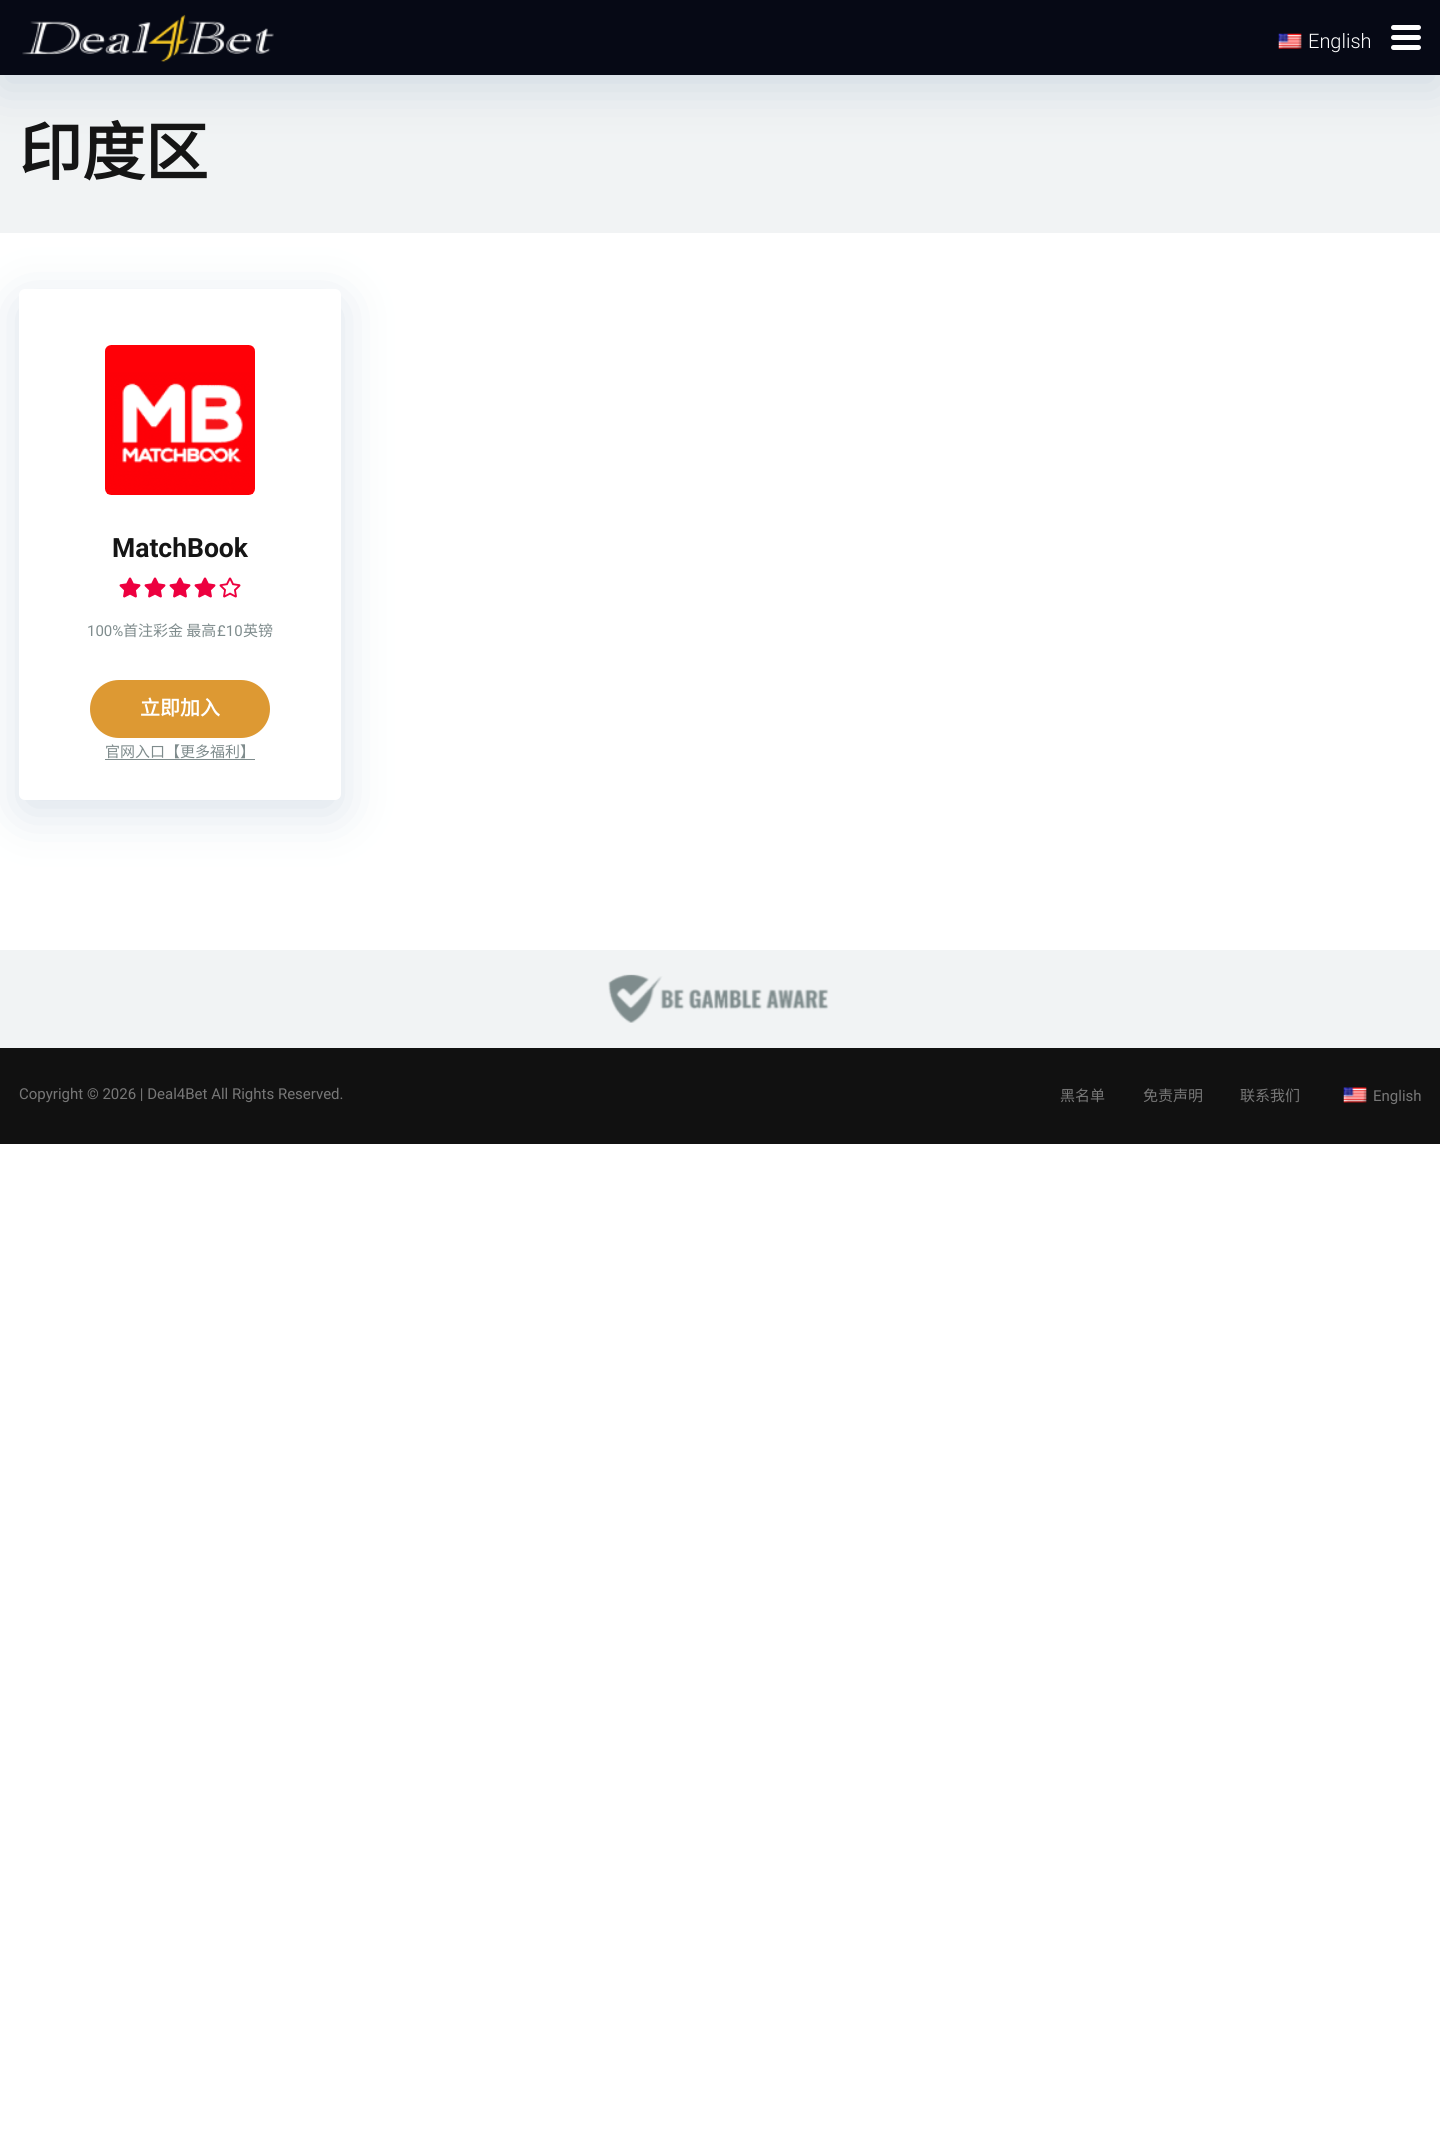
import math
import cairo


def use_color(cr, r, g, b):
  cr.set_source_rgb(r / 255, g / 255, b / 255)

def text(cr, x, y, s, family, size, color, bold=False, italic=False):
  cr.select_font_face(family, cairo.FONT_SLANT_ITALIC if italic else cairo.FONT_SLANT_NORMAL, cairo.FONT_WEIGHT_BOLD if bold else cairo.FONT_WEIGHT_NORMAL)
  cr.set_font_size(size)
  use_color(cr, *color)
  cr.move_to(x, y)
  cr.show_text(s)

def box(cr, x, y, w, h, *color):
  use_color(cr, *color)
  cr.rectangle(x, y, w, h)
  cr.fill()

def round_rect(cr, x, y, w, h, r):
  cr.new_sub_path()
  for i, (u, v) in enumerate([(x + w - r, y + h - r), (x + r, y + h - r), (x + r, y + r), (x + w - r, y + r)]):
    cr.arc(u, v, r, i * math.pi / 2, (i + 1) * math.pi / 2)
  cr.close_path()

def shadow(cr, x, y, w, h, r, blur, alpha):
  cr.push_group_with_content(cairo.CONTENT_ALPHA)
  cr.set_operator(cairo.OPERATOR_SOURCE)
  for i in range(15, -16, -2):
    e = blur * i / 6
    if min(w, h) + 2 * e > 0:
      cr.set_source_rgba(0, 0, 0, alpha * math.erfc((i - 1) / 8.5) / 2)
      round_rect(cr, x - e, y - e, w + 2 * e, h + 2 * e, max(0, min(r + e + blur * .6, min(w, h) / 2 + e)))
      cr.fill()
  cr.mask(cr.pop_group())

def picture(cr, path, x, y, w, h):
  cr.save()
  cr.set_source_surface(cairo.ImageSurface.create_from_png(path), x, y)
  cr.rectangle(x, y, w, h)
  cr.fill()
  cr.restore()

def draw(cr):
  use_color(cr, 255, 255, 255)
  cr.paint()
  box(cr, 0, 75, 1440, 158, 241, 243, 244)
  use_color(cr, 109, 141, 173)
  shadow(cr, 0, 13, 1440, 75, 0, 25, 0.25)
  box(cr, 0, 0, 1440, 75, 6, 9, 21)
  picture(cr, "img_01.png", 22, 14, 252, 48)
  picture(cr, "img_02.png", 1278, 33, 24, 16)
  use_color(cr, 255, 255, 255)
  round_rect(cr, 1391, 25, 30, 5, 2.5)
  cr.fill()
  round_rect(cr, 1391, 35, 30, 5, 2.5)
  cr.fill()
  round_rect(cr, 1391, 45, 30, 5, 2.5)
  cr.fill()
  use_color(cr, 109, 141, 173)
  shadow(cr, 19, 301, 322, 512, 6, 25, 0.25)
  use_color(cr, 255, 255, 255)
  round_rect(cr, 19, 289, 322, 511, 6)
  cr.fill()
  picture(cr, "img_03.png", 105, 345, 150, 150)
  picture(cr, "img_04.png", 119, 577, 22, 21)
  picture(cr, "img_04.png", 144, 577, 22, 21)
  picture(cr, "img_04.png", 169, 577, 22, 21)
  picture(cr, "img_04.png", 194, 577, 22, 21)
  picture(cr, "img_05.png", 219, 577, 22, 21)
  use_color(cr, 221, 153, 51)
  round_rect(cr, 90, 680, 180, 58, 29)
  cr.fill()
  box(cr, 105, 759, 150, 1, 127, 140, 141)
  box(cr, 0, 950, 1440, 98, 241, 243, 244)
  picture(cr, "img_06.png", 608, 974, 221, 49)
  box(cr, 0, 1048, 1440, 96, 17, 17, 17)
  picture(cr, "img_07.png", 1343, 1087, 24, 16)
  text(cr, 1308, 48, "English", "Roboto Light", 20, (255, 255, 255))
  text(cr, 19, 175, "印度区", "Noto Sans CJK SC", 63, (21, 21, 21), bold=True)
  text(cr, 112, 557, "MatchBook", "Roboto", 26.5, (21, 21, 21), bold=True)
  text(cr, 87, 636, "100%", "Roboto", 15, (127, 140, 141))
  text(cr, 123, 636, "首注彩金 最高", "Noto Sans CJK SC", 15, (127, 140, 141))
  text(cr, 217, 636, "£10", "Roboto", 15, (127, 140, 141))
  text(cr, 243, 636, "英镑", "Noto Sans CJK SC", 15, (127, 140, 141))
  text(cr, 140, 715, "立即加入", "Noto Sans CJK SC", 20, (255, 255, 255), bold=True)
  text(cr, 105, 757, "官网入口【更多福利】", "Noto Sans CJK SC", 15, (127, 140, 141))
  text(cr, 19, 1099, "Copyright © 2026 | Deal4Bet All Rights Reserved.", "Roboto", 15, (119, 119, 119))
  text(cr, 1060, 1101, "黑名单", "Noto Sans CJK SC", 15, (119, 119, 119))
  text(cr, 1143, 1101, "免责声明", "Noto Sans CJK SC", 15, (119, 119, 119))
  text(cr, 1240, 1101, "联系我们", "Noto Sans CJK SC", 15, (119, 119, 119))
  text(cr, 1373, 1101, "English", "Roboto", 15, (119, 119, 119))


surface = cairo.ImageSurface(cairo.FORMAT_RGB24, 1440, 2134)
cr = cairo.Context(surface)
options = cairo.FontOptions()
options.set_hint_metrics(cairo.HINT_METRICS_OFF)
options.set_hint_style(cairo.HINT_STYLE_NONE)
cr.set_font_options(options)
cr.set_miter_limit(4)
draw(cr)
surface.write_to_png("out.png")
